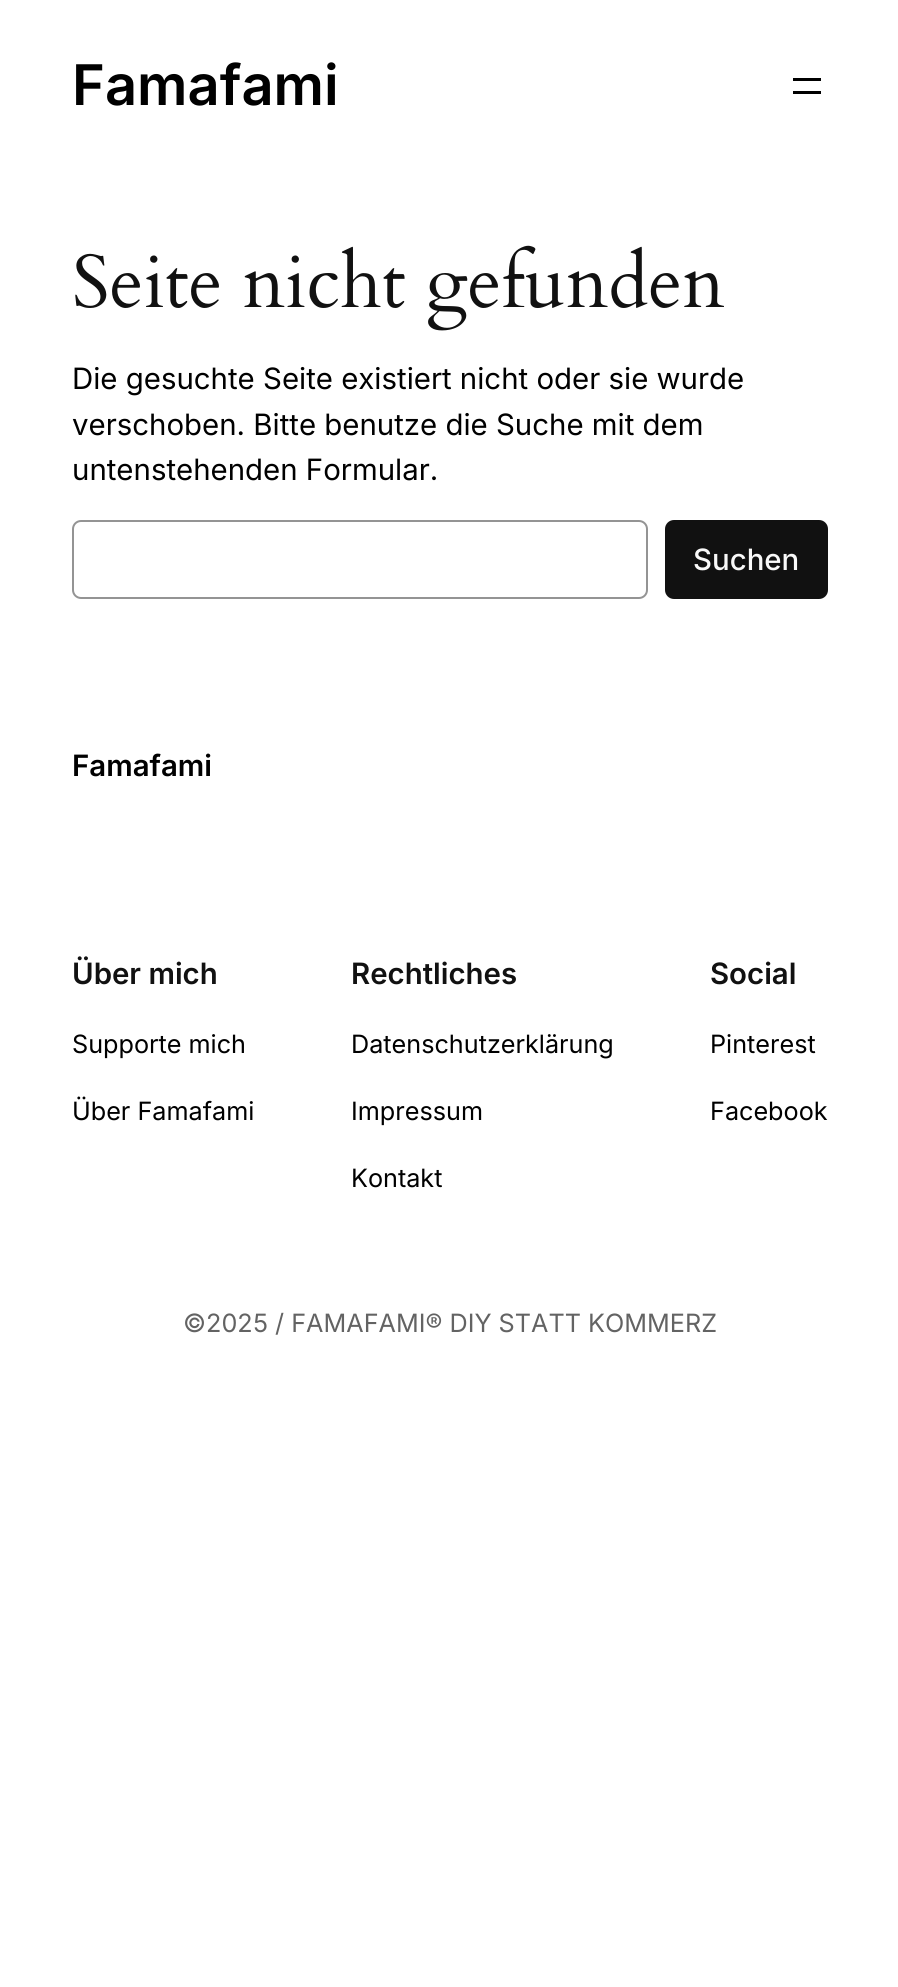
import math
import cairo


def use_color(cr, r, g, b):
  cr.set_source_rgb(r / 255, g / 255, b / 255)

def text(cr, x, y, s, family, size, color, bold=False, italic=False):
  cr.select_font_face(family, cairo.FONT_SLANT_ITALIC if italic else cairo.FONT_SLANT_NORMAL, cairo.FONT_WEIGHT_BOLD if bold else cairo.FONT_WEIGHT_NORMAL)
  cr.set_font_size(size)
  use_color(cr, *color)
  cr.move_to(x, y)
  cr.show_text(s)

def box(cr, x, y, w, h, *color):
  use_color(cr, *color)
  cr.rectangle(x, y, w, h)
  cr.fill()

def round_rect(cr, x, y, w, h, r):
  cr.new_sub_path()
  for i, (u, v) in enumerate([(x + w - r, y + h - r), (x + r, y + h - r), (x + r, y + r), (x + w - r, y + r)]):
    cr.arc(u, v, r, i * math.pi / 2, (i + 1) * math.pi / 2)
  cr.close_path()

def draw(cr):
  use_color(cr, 255, 255, 255)
  cr.paint()
  box(cr, 793, 78, 28, 3, 0, 0, 0)
  box(cr, 793, 91, 28, 3, 0, 0, 0)
  round_rect(cr, 73, 521, 574, 77, 8)
  use_color(cr, 148, 148, 148)
  cr.stroke()
  use_color(cr, 17, 17, 17)
  round_rect(cr, 665, 520, 163, 79, 9)
  cr.fill()
  text(cr, 72, 105, "Famafami", "Inter SemiBold", 56, (0, 0, 0))
  text(cr, 72, 307, "Seite nicht gefunden", "Cardo", 75, (17, 17, 17))
  text(cr, 72, 389, "Die gesuchte Seite existiert nicht oder sie wurde", "Inter", 29.4, (0, 0, 0))
  text(cr, 72, 435, "verschoben. Bitte benutze die Suche mit dem", "Inter", 29.4, (0, 0, 0))
  text(cr, 72, 480, "untenstehenden Formular.", "Inter", 29.4, (0, 0, 0))
  text(cr, 693, 570, "Suchen", "Inter Medium", 29.4, (249, 249, 249))
  text(cr, 72, 776, "Famafami", "Inter SemiBold", 29.4, (0, 0, 0))
  text(cr, 72, 984, "Über mich", "Inter SemiBold", 29.4, (17, 17, 17))
  text(cr, 72, 1053, "Supporte mich", "Inter", 25.2, (0, 0, 0))
  text(cr, 72, 1120, "Über Famafami", "Inter", 25.2, (0, 0, 0))
  text(cr, 351, 984, "Rechtliches", "Inter SemiBold", 29.4, (17, 17, 17))
  text(cr, 351, 1053, "Datenschutzerklärung", "Inter", 25.2, (0, 0, 0))
  text(cr, 351, 1120, "Impressum", "Inter", 25.2, (0, 0, 0))
  text(cr, 351, 1187, "Kontakt", "Inter", 25.2, (0, 0, 0))
  text(cr, 710, 984, "Social", "Inter SemiBold", 29.4, (17, 17, 17))
  text(cr, 710, 1053, "Pinterest", "Inter", 25.2, (0, 0, 0))
  text(cr, 710, 1120, "Facebook", "Inter", 25.2, (0, 0, 0))
  text(cr, 183, 1332, "©2025 / FAMAFAMI® DIY STATT KOMMERZ", "Inter", 25.2, (99, 99, 99))


surface = cairo.ImageSurface(cairo.FORMAT_RGB24, 898, 1987)
cr = cairo.Context(surface)
options = cairo.FontOptions()
options.set_hint_metrics(cairo.HINT_METRICS_OFF)
options.set_hint_style(cairo.HINT_STYLE_NONE)
cr.set_font_options(options)
cr.set_miter_limit(4)
draw(cr)
surface.write_to_png("out.png")
